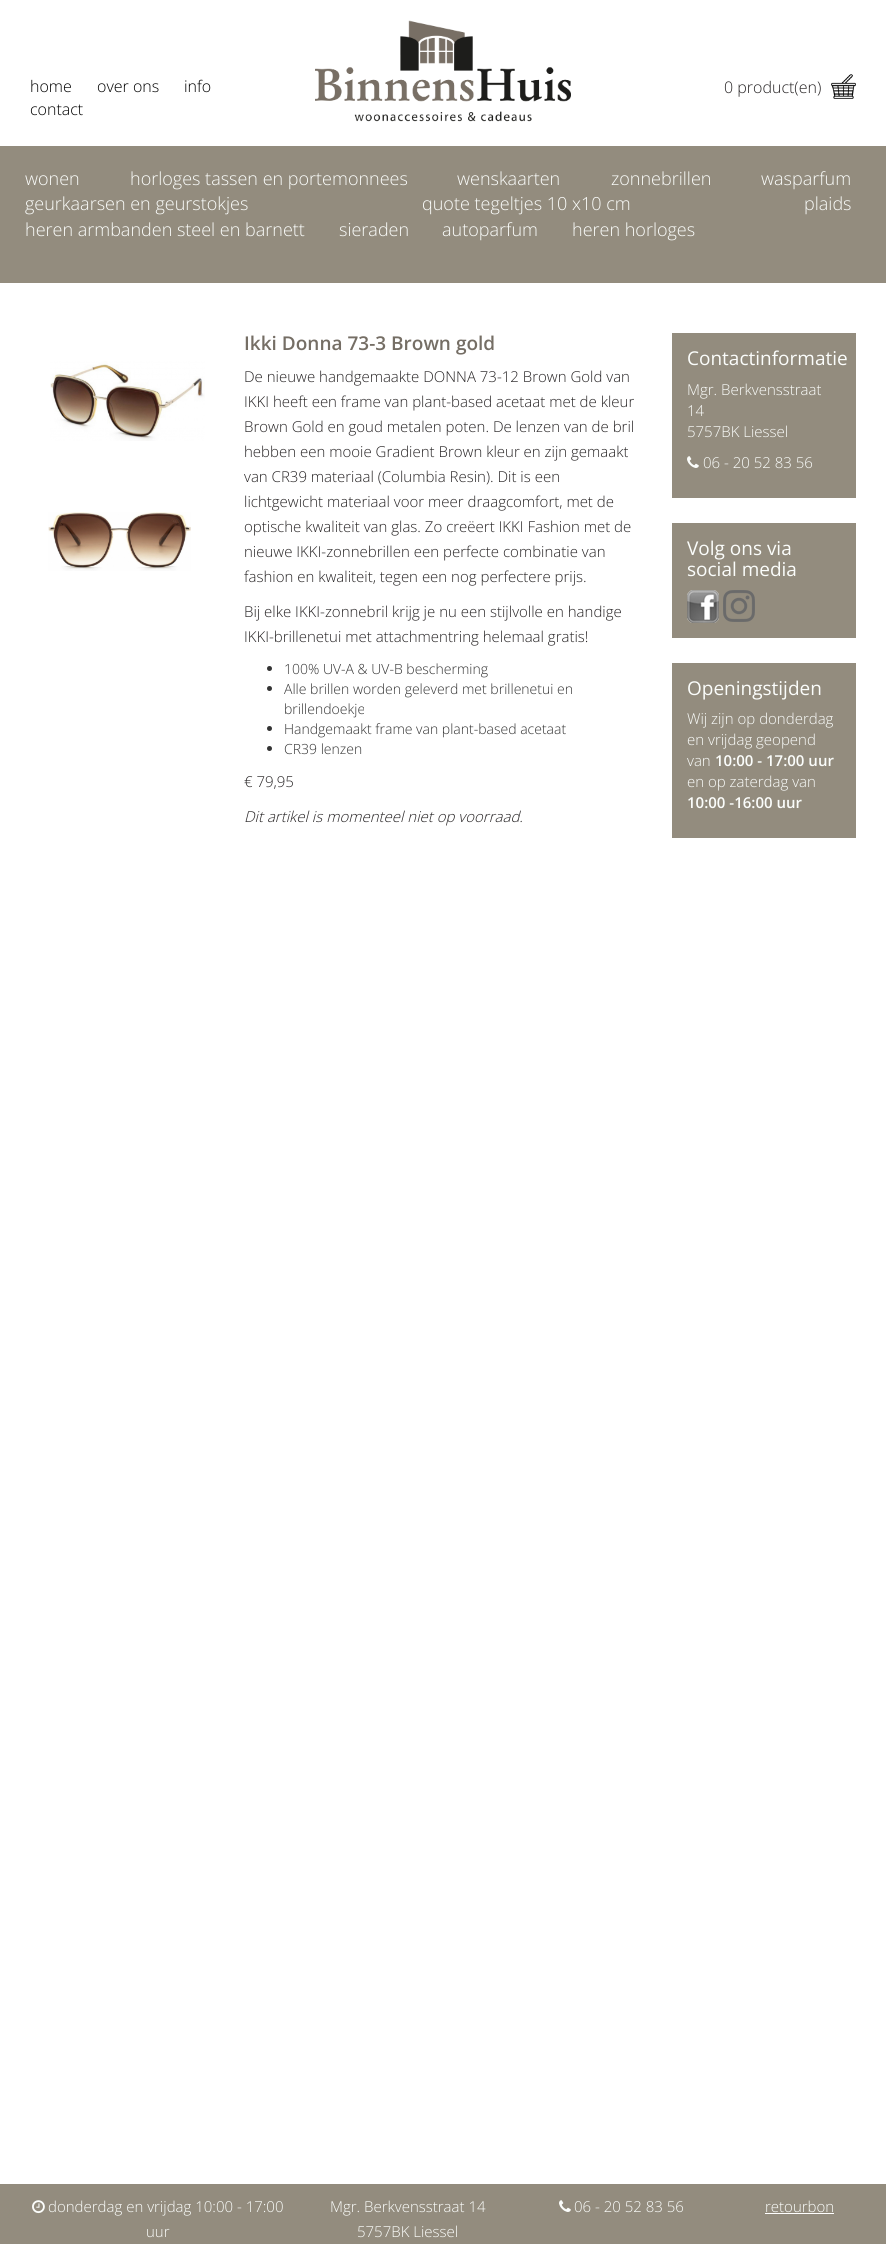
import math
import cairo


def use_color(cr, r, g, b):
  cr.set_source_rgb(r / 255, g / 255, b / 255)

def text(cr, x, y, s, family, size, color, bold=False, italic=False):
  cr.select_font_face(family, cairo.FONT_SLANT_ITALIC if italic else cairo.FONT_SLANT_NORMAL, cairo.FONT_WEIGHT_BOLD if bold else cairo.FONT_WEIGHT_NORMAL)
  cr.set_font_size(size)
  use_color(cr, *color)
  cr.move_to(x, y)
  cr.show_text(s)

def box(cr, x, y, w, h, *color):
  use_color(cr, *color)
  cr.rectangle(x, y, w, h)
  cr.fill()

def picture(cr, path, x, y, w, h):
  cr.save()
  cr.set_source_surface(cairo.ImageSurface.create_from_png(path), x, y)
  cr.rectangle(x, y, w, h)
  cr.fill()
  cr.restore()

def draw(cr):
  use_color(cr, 255, 255, 255)
  cr.paint()
  picture(cr, "img_01.png", 315, 20, 256, 102)
  picture(cr, "img_02.png", 831, 74, 25, 25)
  box(cr, 0, 146, 886, 137, 147, 140, 126)
  picture(cr, "img_03.png", 50, 361, 155, 80)
  picture(cr, "img_04.png", 48, 512, 143, 59)
  use_color(cr, 51, 51, 51)
  cr.arc(269.5, 668.5, 2.5, 0, 2 * math.pi)
  cr.fill()
  cr.arc(269.5, 688.5, 2.5, 0, 2 * math.pi)
  cr.fill()
  cr.arc(269.5, 728.5, 2.5, 0, 2 * math.pi)
  cr.fill()
  cr.arc(269.5, 748.5, 2.5, 0, 2 * math.pi)
  cr.fill()
  box(cr, 672, 333, 184, 165, 147, 140, 126)
  picture(cr, "img_05.png", 687, 456, 12, 12)
  box(cr, 672, 523, 184, 115, 147, 140, 126)
  picture(cr, "img_06.png", 687, 590, 32, 33)
  picture(cr, "img_07.png", 723, 590, 32, 32)
  box(cr, 672, 663, 184, 175, 147, 140, 126)
  box(cr, 0, 2184, 886, 60, 147, 140, 126)
  picture(cr, "img_08.png", 32, 2200, 13, 14)
  picture(cr, "img_05.png", 559, 2200, 12, 12)
  box(cr, 765, 2213, 69, 1, 255, 255, 255)
  text(cr, 30, 92, "home", "Open Sans Light", 16, (0, 0, 0))
  text(cr, 97, 92, "over ons", "Open Sans Light", 16, (0, 0, 0))
  text(cr, 184, 92, "info", "Open Sans Light", 16, (0, 0, 0))
  text(cr, 30, 115, "contact", "Open Sans Light", 16, (0, 0, 0))
  text(cr, 724, 93, "0 product(en)", "Open Sans Light", 16, (39, 36, 37))
  text(cr, 25, 185, "wonen", "Open Sans Light", 18, (251, 253, 251))
  text(cr, 130, 185, "horloges tassen en portemonnees", "Open Sans Light", 18, (251, 253, 251))
  text(cr, 457, 185, "wenskaarten", "Open Sans Light", 18, (251, 253, 251))
  text(cr, 611, 185, "zonnebrillen", "Open Sans Light", 18, (251, 253, 251))
  text(cr, 761, 185, "wasparfum", "Open Sans Light", 18, (251, 253, 251))
  text(cr, 25, 210, "geurkaarsen en geurstokjes", "Open Sans Light", 18, (251, 253, 251))
  text(cr, 422, 210, "quote tegeltjes 10 x10 cm", "Open Sans Light", 18, (251, 253, 251))
  text(cr, 804, 210, "plaids", "Open Sans Light", 18, (251, 253, 251))
  text(cr, 25, 236, "heren armbanden steel en barnett", "Open Sans Light", 18, (251, 253, 251))
  text(cr, 339, 236, "sieraden", "Open Sans Light", 18, (251, 253, 251))
  text(cr, 442, 236, "autoparfum", "Open Sans Light", 18, (251, 253, 251))
  text(cr, 572, 236, "heren horloges", "Open Sans Light", 18, (251, 253, 251))
  text(cr, 244, 350, "Ikki Donna 73-3 Brown gold", "Open Sans SemiBold", 19, (117, 110, 101))
  text(cr, 244, 382, "De nieuwe handgemaakte DONNA 73-12 Brown Gold van", "Open Sans Light", 15, (39, 36, 37))
  text(cr, 244, 407, "IKKI heeft een frame van plant-based acetaat met de kleur", "Open Sans Light", 15, (39, 36, 37))
  text(cr, 244, 432, "Brown Gold en goud metalen poten. De lenzen van de bril", "Open Sans Light", 15, (39, 36, 37))
  text(cr, 244, 457, "hebben een mooie Gradient Brown kleur en zijn gemaakt", "Open Sans Light", 15, (39, 36, 37))
  text(cr, 244, 482, "van CR39 materiaal (Columbia Resin). Dit is een", "Open Sans Light", 15, (39, 36, 37))
  text(cr, 244, 507, "lichtgewicht materiaal voor meer draagcomfort, met de", "Open Sans Light", 15, (39, 36, 37))
  text(cr, 244, 532, "optische kwaliteit van glas. Zo creëert IKKI Fashion met de", "Open Sans Light", 15, (39, 36, 37))
  text(cr, 244, 557, "nieuwe IKKI-zonnebrillen een perfecte combinatie van", "Open Sans Light", 15, (39, 36, 37))
  text(cr, 244, 582, "fashion en kwaliteit, tegen een nog perfectere prijs.", "Open Sans Light", 15, (39, 36, 37))
  text(cr, 244, 617, "Bij elke IKKI-zonnebril krijg je nu een stijlvolle en handige", "Open Sans Light", 15, (39, 36, 37))
  text(cr, 244, 642, "IKKI-brillenetui met attachmentring helemaal gratis!", "Open Sans Light", 15, (39, 36, 37))
  text(cr, 284, 674, "100% UV-A & UV-B bescherming", "Open Sans Light", 14, (51, 51, 51))
  text(cr, 284, 694, "Alle brillen worden geleverd met brillenetui en", "Open Sans Light", 14, (51, 51, 51))
  text(cr, 284, 714, "brillendoekje", "Open Sans Light", 14, (51, 51, 51))
  text(cr, 284, 734, "Handgemaakt frame van plant-based acetaat", "Open Sans Light", 14, (51, 51, 51))
  text(cr, 284, 754, "CR39 lenzen", "Open Sans Light", 14, (51, 51, 51))
  text(cr, 244, 787, "€ 79,95", "Open Sans Light", 15, (39, 36, 37))
  text(cr, 244, 822, "Dit artikel is momenteel niet op voorraad.", "Open Sans Light", 15, (39, 36, 37), italic=True)
  text(cr, 687, 365, "Contactinformatie", "Open Sans", 19, (251, 253, 251))
  text(cr, 687, 395, "Mgr. Berkvensstraat", "Open Sans Light", 15, (251, 253, 251))
  text(cr, 687, 416, "14", "Open Sans Light", 15, (251, 253, 251))
  text(cr, 687, 437, "5757BK Liessel", "Open Sans Light", 15, (251, 253, 251))
  text(cr, 703, 468, "06 - 20 52 83 56", "Open Sans Light", 15, (251, 253, 251))
  text(cr, 687, 555, "Volg ons via", "Open Sans", 19, (251, 253, 251))
  text(cr, 687, 576, "social media", "Open Sans", 19, (251, 253, 251))
  text(cr, 687, 695, "Openingstijden", "Open Sans", 19, (251, 253, 251))
  text(cr, 687, 724, "Wij zijn op donderdag", "Open Sans Light", 15, (251, 253, 251))
  text(cr, 687, 745, "en vrijdag geopend", "Open Sans Light", 15, (251, 253, 251))
  text(cr, 687, 766, "van", "Open Sans Light", 15, (251, 253, 251))
  text(cr, 715, 766, "10:00 - 17:00 uur", "Open Sans SemiBold", 15, (251, 253, 251))
  text(cr, 687, 787, "en op zaterdag van", "Open Sans Light", 15, (251, 253, 251))
  text(cr, 687, 808, "10:00 -16:00 uur", "Open Sans SemiBold", 15, (251, 253, 251))
  text(cr, 48, 2212, "donderdag en vrijdag 10:00 - 17:00", "Open Sans Light", 15, (251, 253, 251))
  text(cr, 146, 2237, "uur", "Open Sans Light", 15, (251, 253, 251))
  text(cr, 330, 2212, "Mgr. Berkvensstraat 14", "Open Sans Light", 15, (251, 253, 251))
  text(cr, 357, 2237, "5757BK Liessel", "Open Sans Light", 15, (251, 253, 251))
  text(cr, 574, 2212, "06 - 20 52 83 56", "Open Sans Light", 15, (251, 253, 251))
  text(cr, 765, 2212, "retourbon", "Open Sans Light", 15, (251, 253, 251))


surface = cairo.ImageSurface(cairo.FORMAT_RGB24, 886, 2244)
cr = cairo.Context(surface)
options = cairo.FontOptions()
options.set_hint_metrics(cairo.HINT_METRICS_OFF)
options.set_hint_style(cairo.HINT_STYLE_NONE)
cr.set_font_options(options)
cr.set_miter_limit(4)
draw(cr)
surface.write_to_png("out.png")
